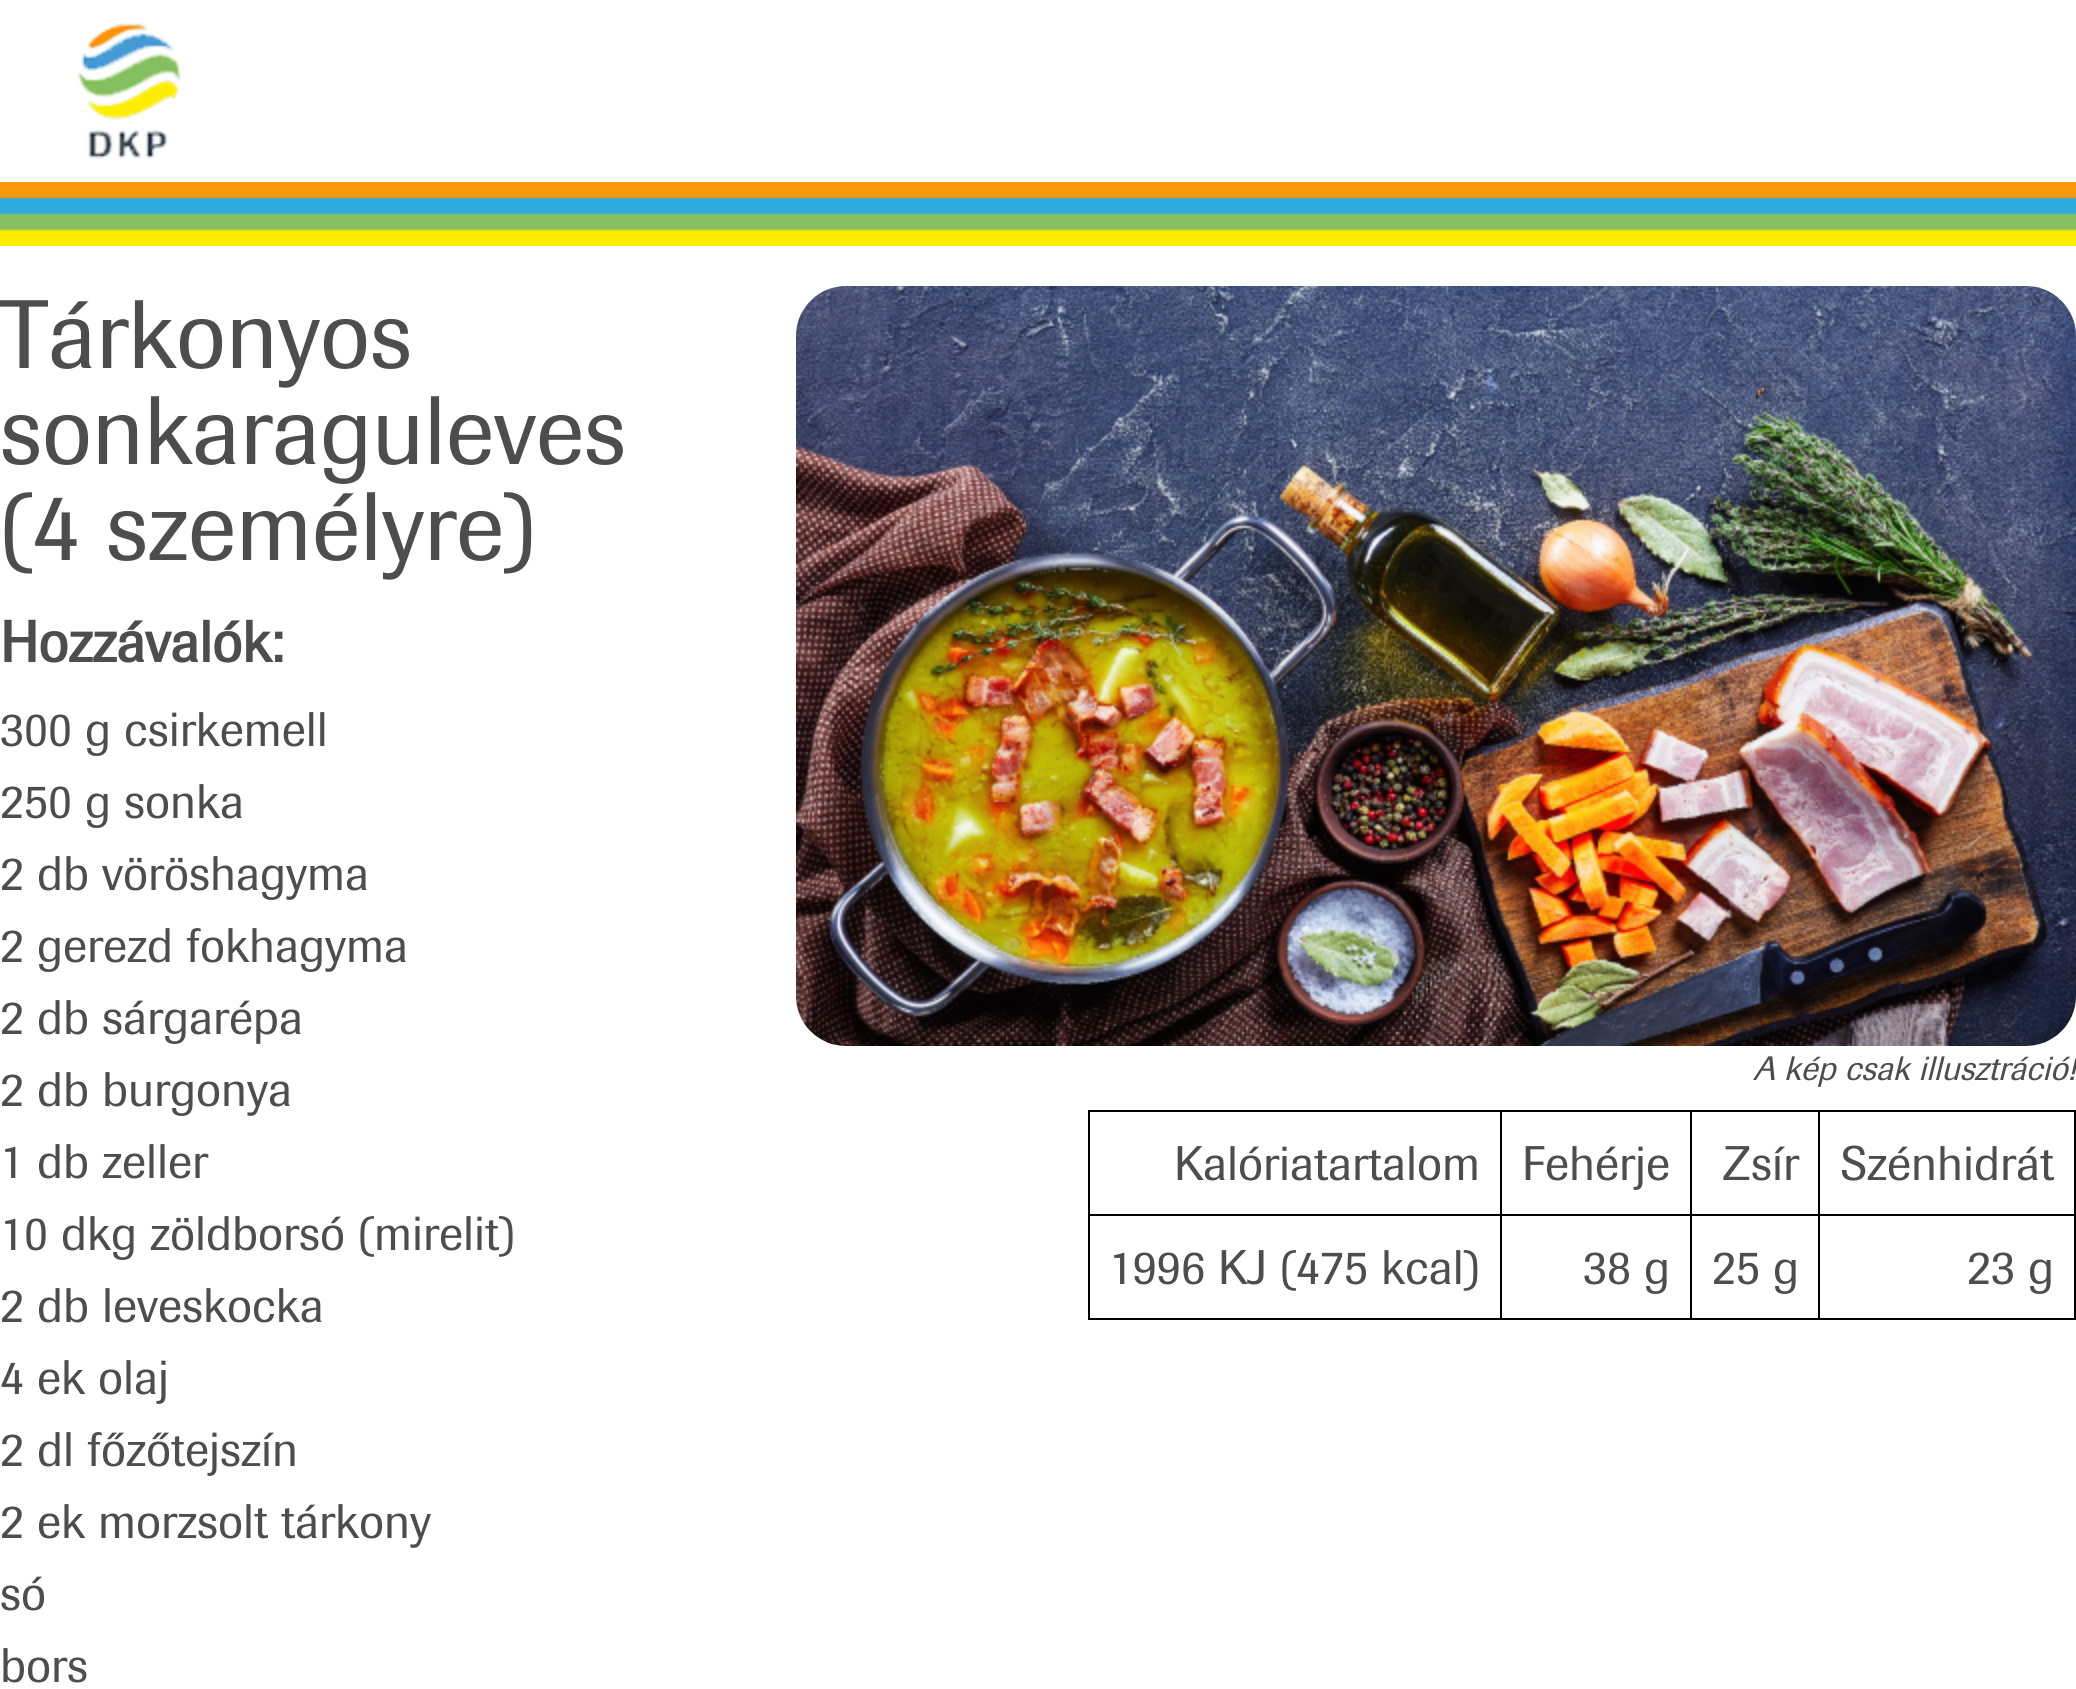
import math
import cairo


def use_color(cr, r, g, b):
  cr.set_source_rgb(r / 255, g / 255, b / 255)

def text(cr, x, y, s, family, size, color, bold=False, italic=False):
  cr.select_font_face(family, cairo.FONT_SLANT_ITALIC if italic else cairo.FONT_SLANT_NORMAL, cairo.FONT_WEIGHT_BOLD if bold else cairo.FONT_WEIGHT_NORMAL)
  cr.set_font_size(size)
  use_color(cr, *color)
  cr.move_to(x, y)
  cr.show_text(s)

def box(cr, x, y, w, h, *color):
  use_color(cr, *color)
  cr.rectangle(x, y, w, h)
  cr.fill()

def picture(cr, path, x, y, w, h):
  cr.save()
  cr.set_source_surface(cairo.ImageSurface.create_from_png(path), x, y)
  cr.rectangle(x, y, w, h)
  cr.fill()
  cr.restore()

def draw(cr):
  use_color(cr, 255, 255, 255)
  cr.paint()
  picture(cr, "img_01.png", 77, 23, 104, 136)
  picture(cr, "img_02.png", 0, 182, 2076, 64)
  picture(cr, "img_03.png", 796, 286, 1280, 760)
  box(cr, 2074, 1110, 2, 210, 0, 0, 0)
  box(cr, 1088, 1110, 986, 2, 0, 0, 0)
  box(cr, 1088, 1214, 986, 2, 0, 0, 0)
  box(cr, 1088, 1110, 2, 106, 0, 0, 0)
  box(cr, 1088, 1318, 986, 2, 0, 0, 0)
  box(cr, 1088, 1216, 2, 104, 0, 0, 0)
  box(cr, 1500, 1110, 2, 210, 0, 0, 0)
  box(cr, 1690, 1110, 2, 210, 0, 0, 0)
  box(cr, 1818, 1110, 2, 210, 0, 0, 0)
  text(cr, 0, 368, "Tárkonyos", "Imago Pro", 96, (77, 77, 79))
  text(cr, 0, 464, "sonkaraguleves", "Imago Pro", 96, (77, 77, 79))
  text(cr, 0, 560, "(4 személyre)", "Imago Pro", 96, (77, 77, 79))
  text(cr, 0, 662, "Hozzávalók:", "Imago Pro", 57.5, (77, 77, 79), bold=True)
  text(cr, 0, 746, "300 g csirkemell", "Imago Pro", 48, (77, 77, 79))
  text(cr, 0, 818, "250 g sonka", "Imago Pro", 48, (77, 77, 79))
  text(cr, 0, 890, "2 db vöröshagyma", "Imago Pro", 48, (77, 77, 79))
  text(cr, 0, 962, "2 gerezd fokhagyma", "Imago Pro", 48, (77, 77, 79))
  text(cr, 0, 1034, "2 db sárgarépa", "Imago Pro", 48, (77, 77, 79))
  text(cr, 0, 1106, "2 db burgonya", "Imago Pro", 48, (77, 77, 79))
  text(cr, 0, 1178, "1 db zeller", "Imago Pro", 48, (77, 77, 79))
  text(cr, 0, 1250, "10 dkg zöldborsó (mirelit)", "Imago Pro", 48, (77, 77, 79))
  text(cr, 0, 1322, "2 db leveskocka", "Imago Pro", 48, (77, 77, 79))
  text(cr, 0, 1394, "4 ek olaj", "Imago Pro", 48, (77, 77, 79))
  text(cr, 0, 1466, "2 dl főzőtejszín", "Imago Pro", 48, (77, 77, 79))
  text(cr, 0, 1538, "2 ek morzsolt tárkony", "Imago Pro", 48, (77, 77, 79))
  text(cr, 0, 1610, "só", "Imago Pro", 48, (77, 77, 79))
  text(cr, 0, 1682, "bors", "Imago Pro", 48, (77, 77, 79))
  text(cr, 1753, 1080, "A kép csak illusztráció!", "Imago Pro", 33.5, (77, 77, 79), italic=True)
  text(cr, 1174, 1180, "Kalóriatartalom", "Imago Pro", 48, (77, 77, 79))
  text(cr, 1109, 1284, "1996 KJ (475 kcal)", "Imago Pro", 48, (77, 77, 79))
  text(cr, 1522, 1180, "Fehérje", "Imago Pro", 48, (77, 77, 79))
  text(cr, 1583, 1284, "38 g", "Imago Pro", 48, (77, 77, 79))
  text(cr, 1722, 1180, "Zsír", "Imago Pro", 48, (77, 77, 79))
  text(cr, 1712, 1284, "25 g", "Imago Pro", 48, (77, 77, 79))
  text(cr, 1841, 1180, "Szénhidrát", "Imago Pro", 48, (77, 77, 79))
  text(cr, 1967, 1284, "23 g", "Imago Pro", 48, (77, 77, 79))


surface = cairo.ImageSurface(cairo.FORMAT_RGB24, 2076, 1689)
cr = cairo.Context(surface)
options = cairo.FontOptions()
options.set_hint_metrics(cairo.HINT_METRICS_OFF)
options.set_hint_style(cairo.HINT_STYLE_NONE)
cr.set_font_options(options)
cr.set_miter_limit(4)
draw(cr)
surface.write_to_png("out.png")
